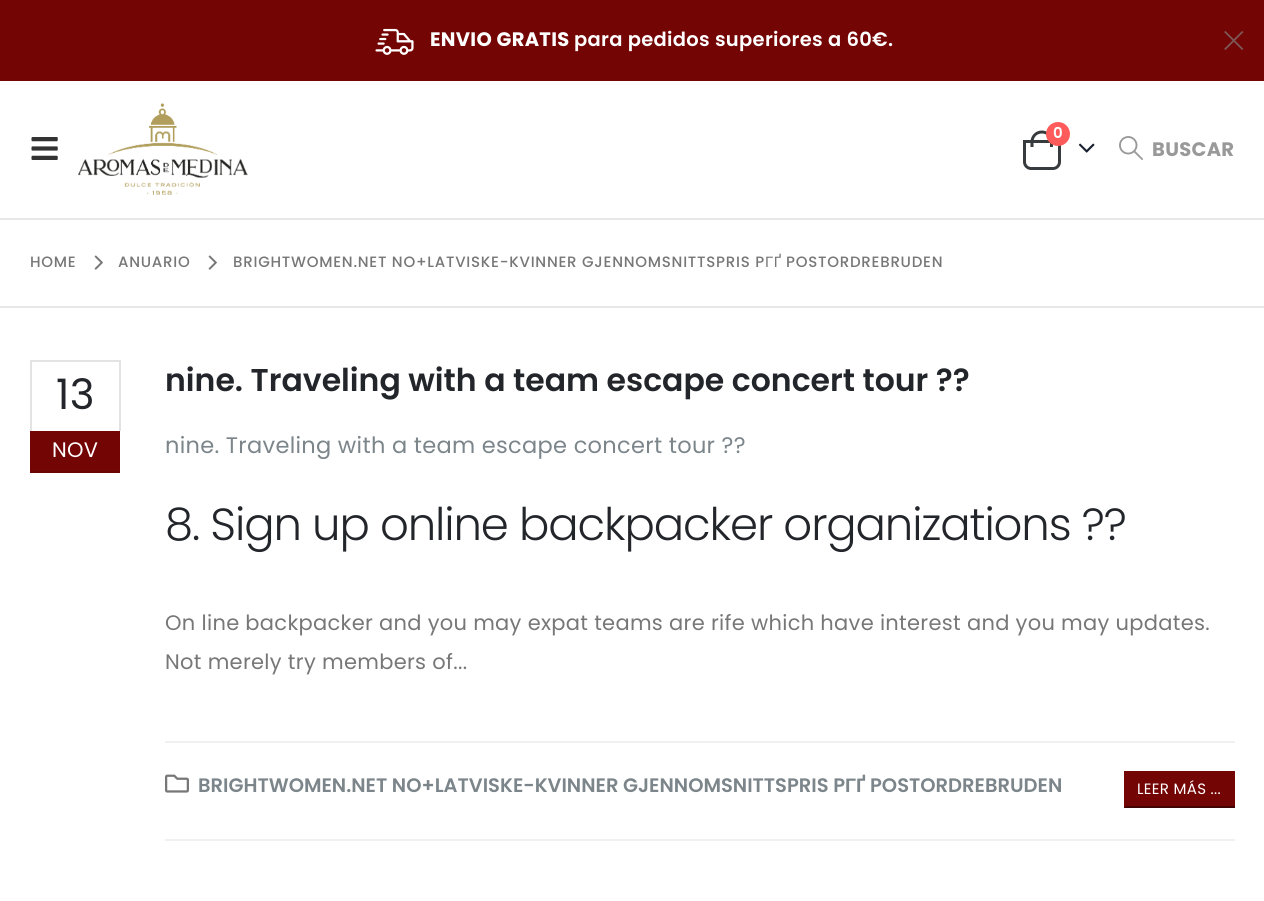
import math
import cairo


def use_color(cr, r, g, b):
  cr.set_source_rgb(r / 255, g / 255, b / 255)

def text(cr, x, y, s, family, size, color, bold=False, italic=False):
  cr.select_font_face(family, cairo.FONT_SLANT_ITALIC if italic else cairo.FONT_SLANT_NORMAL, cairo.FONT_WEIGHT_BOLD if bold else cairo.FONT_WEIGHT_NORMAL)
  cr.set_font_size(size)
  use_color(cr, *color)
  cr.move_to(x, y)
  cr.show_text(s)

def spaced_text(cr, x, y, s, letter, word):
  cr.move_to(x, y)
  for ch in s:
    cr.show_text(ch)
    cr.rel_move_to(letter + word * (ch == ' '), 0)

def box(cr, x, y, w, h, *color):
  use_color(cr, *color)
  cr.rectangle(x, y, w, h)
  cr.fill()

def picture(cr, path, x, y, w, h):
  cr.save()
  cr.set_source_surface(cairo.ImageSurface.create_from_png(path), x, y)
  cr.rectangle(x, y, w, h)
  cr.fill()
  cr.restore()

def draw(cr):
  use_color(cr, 255, 255, 255)
  cr.paint()
  box(cr, 0, 0, 1264, 81, 115, 5, 4)
  picture(cr, "img_01.png", 375, 28, 39, 27)
  use_color(cr, 125, 87, 87)
  cr.new_path()
  cr.move_to(1225.5, 31)
  cr.line_to(1243.5, 49)
  cr.line_to(1242, 50)
  cr.line_to(1224, 32)
  cr.close_path()
  cr.fill()
  cr.new_path()
  cr.move_to(1242, 31)
  cr.line_to(1243.5, 32)
  cr.line_to(1225.5, 50)
  cr.line_to(1224, 49)
  cr.close_path()
  cr.fill()
  picture(cr, "img_02.png", 31, 137, 27, 23)
  picture(cr, "img_03.png", 78, 103, 170, 92)
  cr.new_path()
  cr.move_to(1024.5, 141.5)
  cr.line_to(1059.5, 141.5)
  cr.line_to(1059.5, 162)
  cr.curve_to(1059.5, 165.5, 1056.5, 168.5, 1053, 168.5)
  cr.line_to(1031, 168.5)
  cr.curve_to(1027.5, 168.5, 1024.5, 165.5, 1024.5, 162)
  cr.close_path()
  use_color(cr, 56, 59, 62)
  cr.set_line_width(3)
  cr.stroke()
  cr.set_fill_rule(cairo.FILL_RULE_EVEN_ODD)
  cr.new_path()
  cr.move_to(1042, 130.5)
  cr.curve_to(1048, 130.5, 1053, 135.5, 1053, 142)
  cr.line_to(1053, 147)
  cr.line_to(1030.5, 147)
  cr.line_to(1030.5, 142)
  cr.curve_to(1030.5, 135.5, 1035.5, 130.5, 1042, 130.5)
  cr.close_path()
  cr.move_to(1042, 133.5)
  cr.curve_to(1046.5, 133.5, 1050, 137, 1050, 142)
  cr.line_to(1050, 147)
  cr.line_to(1033.5, 147)
  cr.line_to(1033.5, 142)
  cr.curve_to(1033.5, 137, 1037, 133.5, 1042, 133.5)
  cr.close_path()
  cr.fill()
  use_color(cr, 255, 91, 91)
  cr.arc(1058, 134, 12, 0, 2 * math.pi)
  cr.fill()
  picture(cr, "img_04.png", 1078, 143, 17, 10)
  picture(cr, "img_05.png", 1119, 136, 24, 24)
  box(cr, 0, 218, 1264, 2, 231, 231, 231)
  box(cr, 0, 306, 1264, 2, 231, 231, 231)
  picture(cr, "img_06.png", 94, 255, 9, 15)
  picture(cr, "img_06.png", 208, 255, 9, 15)
  box(cr, 165, 839, 1070, 2, 240, 240, 240)
  box(cr, 30, 360, 90, 2, 227, 227, 227)
  box(cr, 119, 360, 2, 71, 227, 227, 227)
  box(cr, 30, 360, 2, 71, 227, 227, 227)
  box(cr, 30, 431, 90, 40, 115, 5, 4)
  box(cr, 30, 471, 90, 2, 107, 5, 4)
  box(cr, 165, 741, 1070, 2, 240, 240, 240)
  picture(cr, "img_07.png", 165, 774, 24, 19)
  box(cr, 1126, 771, 109, 35, 115, 5, 4)
  box(cr, 1124, 806, 111, 2, 66, 3, 3)
  box(cr, 1124, 771, 2, 36, 115, 5, 4)
  cr.select_font_face("Poppins", cairo.FONT_SLANT_NORMAL, cairo.FONT_WEIGHT_BOLD)
  cr.set_font_size(19.5)
  use_color(cr, 255, 255, 255)
  spaced_text(cr, 430, 46, "ENVIO GRATIS", 0.3, 0)
  cr.select_font_face("Poppins SemiBold")
  spaced_text(cr, 574, 46, "para pedidos superiores a 60€.", 0.3, 0)
  cr.set_font_size(15)
  spaced_text(cr, 1053, 138, "0", 0.3, 0)
  cr.select_font_face("Poppins", cairo.FONT_SLANT_NORMAL, cairo.FONT_WEIGHT_BOLD)
  cr.set_font_size(19.5)
  use_color(cr, 153, 153, 153)
  spaced_text(cr, 1152, 156, "BUSCAR", 0.3, 0)
  cr.select_font_face("Poppins Medium")
  cr.set_font_size(15)
  use_color(cr, 119, 119, 119)
  spaced_text(cr, 30, 267, "HOME", 0.75, 0)
  spaced_text(cr, 118, 267, "ANUARIO", 0.75, 0)
  spaced_text(cr, 233, 267, "BRIGHTWOMEN.NET NO+LATVISKE-KVINNER GJENNOMSNITTSPRIS P", 0.75, 0)
  cr.select_font_face("Liberation Sans")
  spaced_text(cr, 765, 267, "ГҐ", 0.75, 0)
  cr.select_font_face("Poppins Medium")
  spaced_text(cr, 786, 267, "POSTORDREBRUDEN", 0.75, 0)
  cr.select_font_face("Poppins")
  cr.set_font_size(42)
  use_color(cr, 34, 37, 41)
  spaced_text(cr, 56, 409, "13", 0.3, 0)
  cr.set_font_size(21)
  use_color(cr, 255, 255, 255)
  spaced_text(cr, 52, 457, "NOV", 0.3, 0)
  text(cr, 165, 391, "nine. Traveling with a team escape concert tour ??", "Poppins SemiBold", 31.5, (34, 37, 41))
  cr.select_font_face("Poppins")
  cr.set_font_size(22.5)
  use_color(cr, 123, 133, 138)
  spaced_text(cr, 165, 453, "nine. Traveling with a team escape concert tour ??", 0.3, 0)
  cr.select_font_face("Poppins Light")
  cr.set_font_size(45)
  use_color(cr, 34, 37, 41)
  spaced_text(cr, 165, 540, "8. Sign up online backpacker organizations ??", -1.1, 0)
  cr.select_font_face("Poppins")
  cr.set_font_size(21)
  use_color(cr, 119, 119, 119)
  spaced_text(cr, 165, 630, "On line backpacker and you may expat teams are rife which have interest and you may updates.", 0.3, 0)
  spaced_text(cr, 165, 669, "Not merely try members of...", 0.3, 0)
  text(cr, 198, 792, "BRIGHTWOMEN.NET NO+LATVISKE-KVINNER GJENNOMSNITTSPRIS P", "Poppins SemiBold", 19.5, (123, 133, 138))
  text(cr, 845, 792, "ГҐ", "Liberation Sans", 19.5, (123, 133, 138), bold=True)
  text(cr, 870, 792, "POSTORDREBRUDEN", "Poppins SemiBold", 19.5, (123, 133, 138))
  cr.select_font_face("Poppins")
  cr.set_font_size(15)
  use_color(cr, 255, 255, 255)
  spaced_text(cr, 1137, 794, "LEER MÁS ...", 0.3, 0)


surface = cairo.ImageSurface(cairo.FORMAT_RGB24, 1264, 901)
cr = cairo.Context(surface)
options = cairo.FontOptions()
options.set_hint_metrics(cairo.HINT_METRICS_OFF)
options.set_hint_style(cairo.HINT_STYLE_NONE)
cr.set_font_options(options)
cr.set_miter_limit(4)
draw(cr)
surface.write_to_png("out.png")
